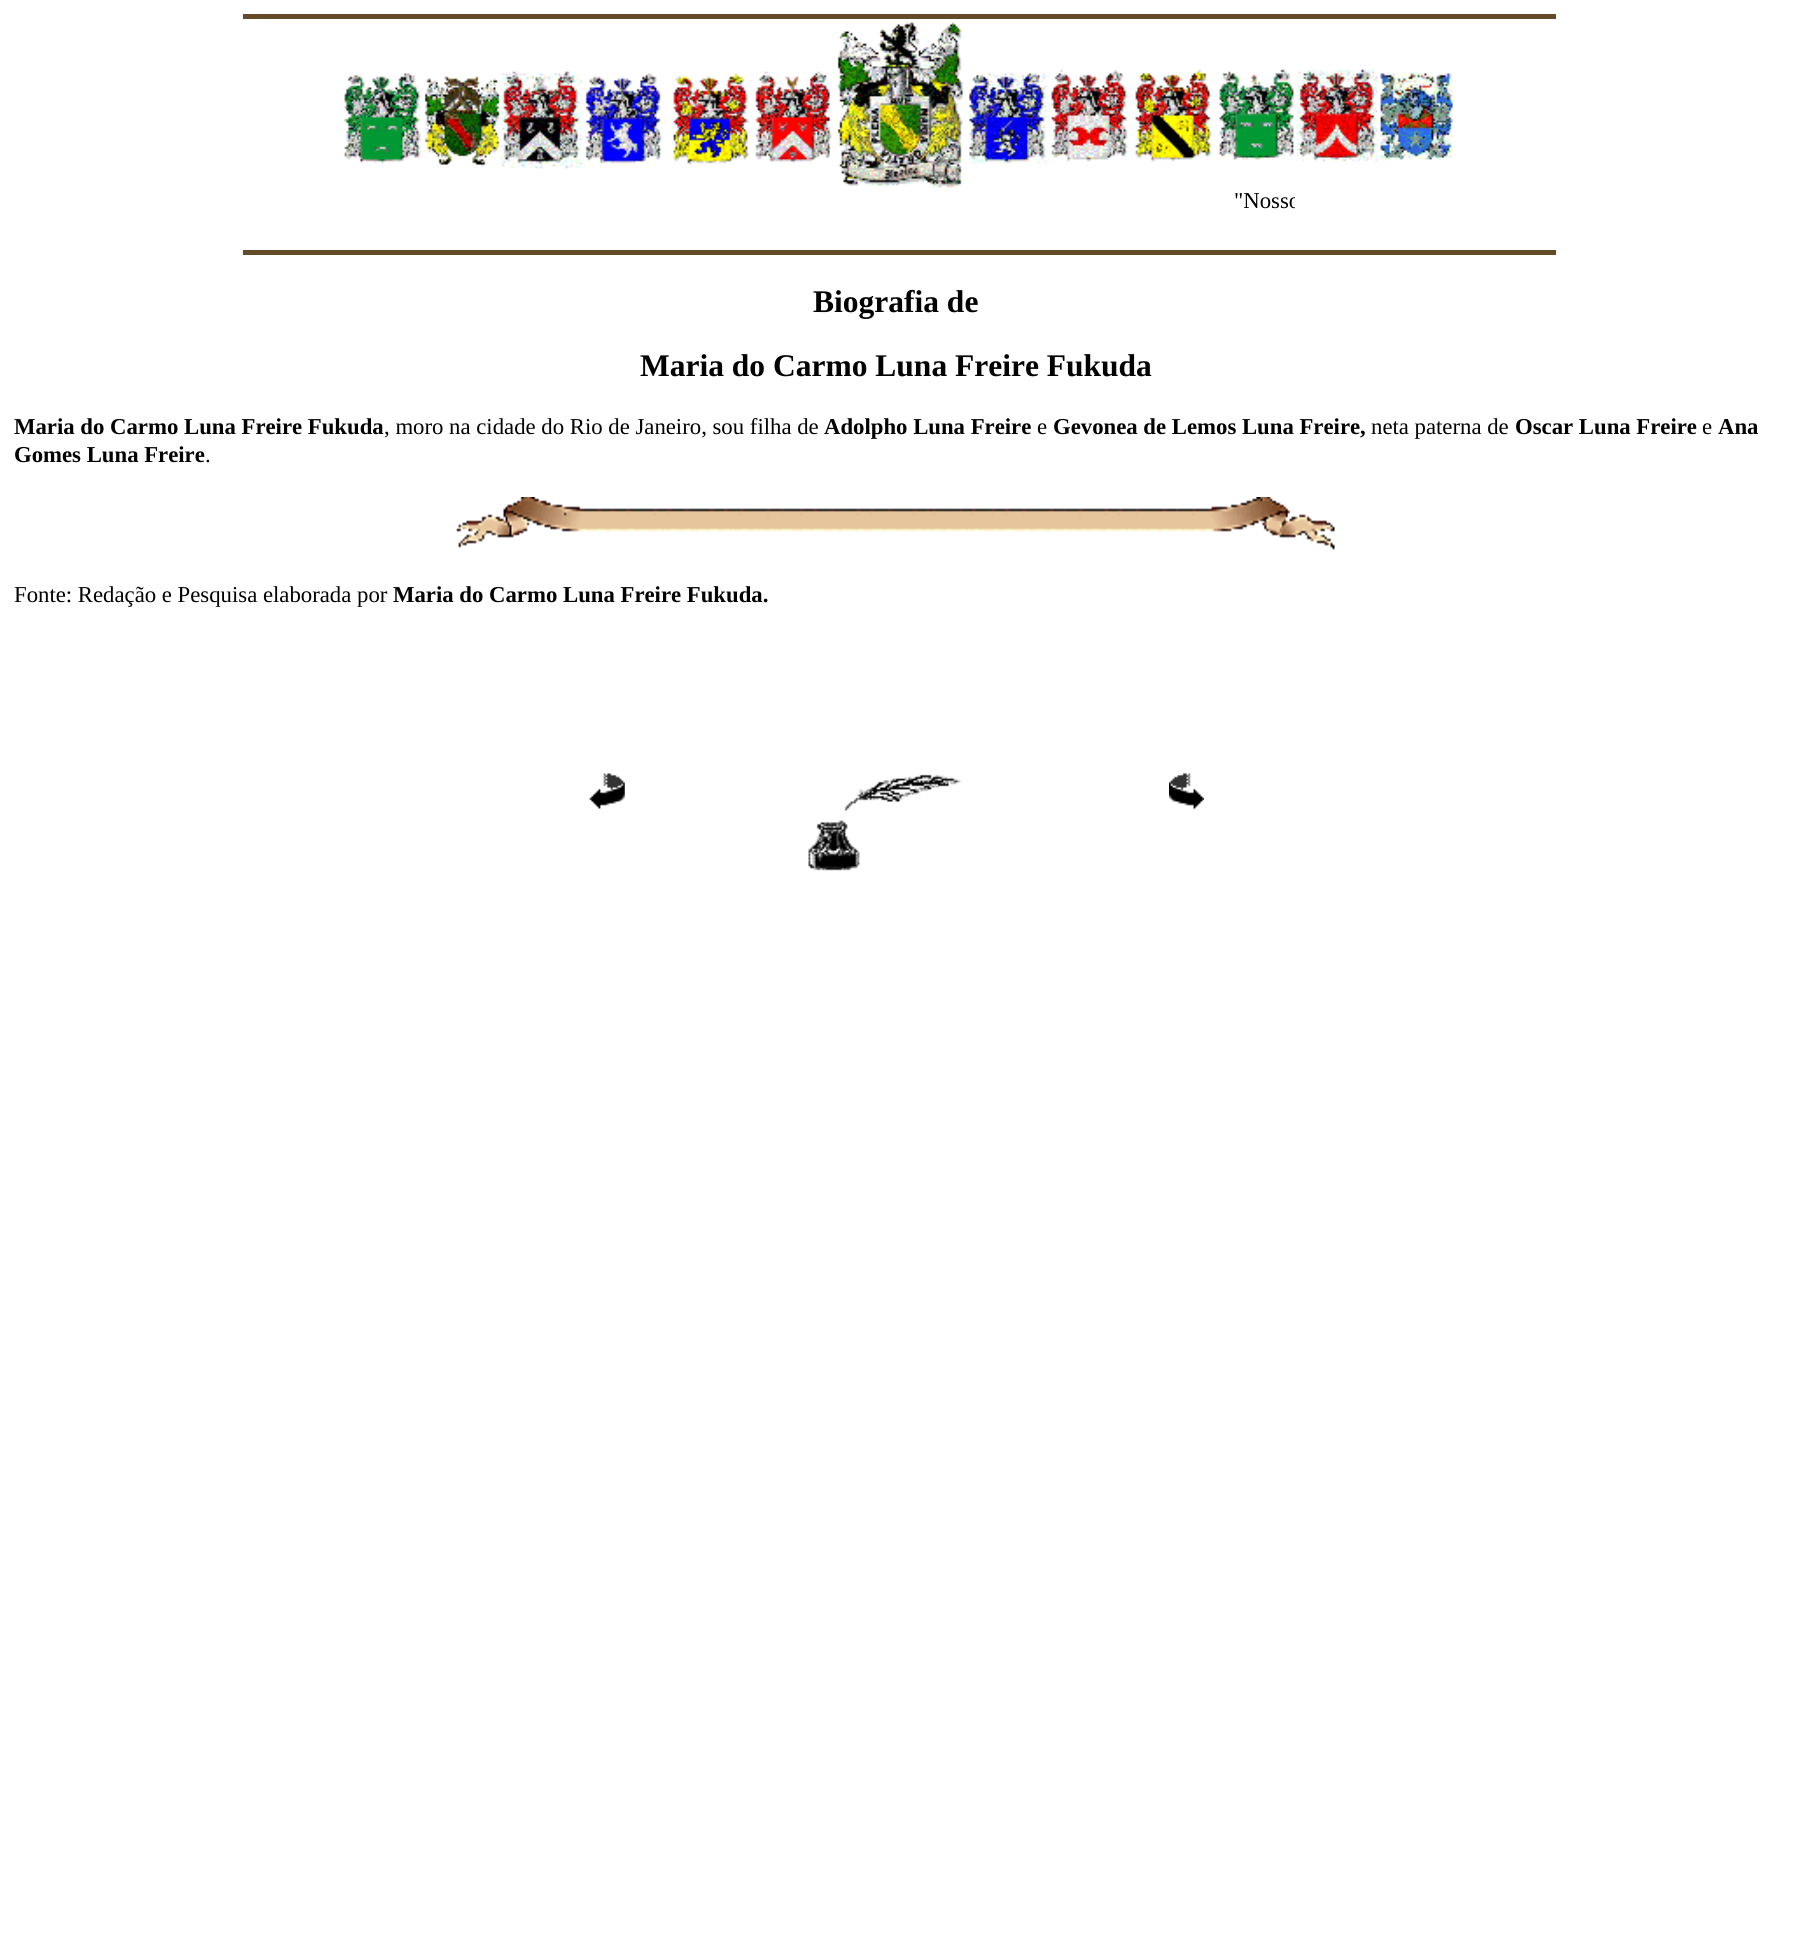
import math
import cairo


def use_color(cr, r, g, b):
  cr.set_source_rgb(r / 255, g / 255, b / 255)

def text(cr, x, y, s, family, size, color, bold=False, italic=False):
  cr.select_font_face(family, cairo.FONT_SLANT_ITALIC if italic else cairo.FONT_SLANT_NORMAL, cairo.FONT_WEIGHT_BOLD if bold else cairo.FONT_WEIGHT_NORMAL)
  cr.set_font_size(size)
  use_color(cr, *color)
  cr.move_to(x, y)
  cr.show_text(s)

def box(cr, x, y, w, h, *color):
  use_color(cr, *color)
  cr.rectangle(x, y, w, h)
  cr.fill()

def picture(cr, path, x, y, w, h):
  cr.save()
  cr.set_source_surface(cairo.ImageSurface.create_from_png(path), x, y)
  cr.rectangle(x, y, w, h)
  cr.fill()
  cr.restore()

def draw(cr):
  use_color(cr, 255, 255, 255)
  cr.paint()
  box(cr, 243, 14, 1313, 5, 99, 74, 41)
  picture(cr, "img_01.png", 344, 22, 1109, 166)
  box(cr, 243, 250, 1313, 5, 99, 74, 41)
  picture(cr, "img_02.png", 456, 497, 879, 53)
  picture(cr, "img_03.png", 589, 773, 36, 36)
  picture(cr, "img_04.png", 808, 774, 154, 97)
  picture(cr, "img_05.png", 1169, 773, 35, 36)
  cr.save()
  cr.rectangle(506, 187, 789, 63)
  cr.clip()
  text(cr, 1234, 208, "\"Nosso", "Liberation Serif", 22.75, (0, 0, 0))
  cr.restore()
  text(cr, 813, 312, "Biografia de", "Liberation Serif", 31.5, (0, 0, 0), bold=True)
  text(cr, 640, 376, "Maria do Carmo Luna Freire Fukuda", "Liberation Serif", 31.5, (0, 0, 0), bold=True)
  text(cr, 14, 434, "Maria do Carmo Luna Freire Fukuda", "Liberation Serif", 22.75, (0, 0, 0), bold=True)
  text(cr, 384, 434, ", moro na cidade do Rio de Janeiro, sou filha de", "Liberation Serif", 22.75, (0, 0, 0))
  text(cr, 824, 434, "Adolpho Luna Freire", "Liberation Serif", 22.75, (0, 0, 0), bold=True)
  text(cr, 1037, 434, "e", "Liberation Serif", 22.75, (0, 0, 0))
  text(cr, 1053, 434, "Gevonea de Lemos Luna Freire,", "Liberation Serif", 22.75, (0, 0, 0), bold=True)
  text(cr, 1371, 434, "neta paterna de", "Liberation Serif", 22.75, (0, 0, 0))
  text(cr, 1515, 434, "Oscar Luna Freire", "Liberation Serif", 22.75, (0, 0, 0), bold=True)
  text(cr, 1702, 434, "e", "Liberation Serif", 22.75, (0, 0, 0))
  text(cr, 1718, 434, "Ana", "Liberation Serif", 22.75, (0, 0, 0), bold=True)
  text(cr, 14, 462, "Gomes Luna Freire", "Liberation Serif", 22.75, (0, 0, 0), bold=True)
  text(cr, 205, 462, ".", "Liberation Serif", 22.75, (0, 0, 0))
  text(cr, 14, 602, "Fonte: Redação e Pesquisa elaborada por", "Liberation Serif", 22.75, (0, 0, 0))
  text(cr, 393, 602, "Maria do Carmo Luna Freire Fukuda.", "Liberation Serif", 22.75, (0, 0, 0), bold=True)


surface = cairo.ImageSurface(cairo.FORMAT_RGB24, 1798, 1951)
cr = cairo.Context(surface)
options = cairo.FontOptions()
options.set_hint_metrics(cairo.HINT_METRICS_OFF)
options.set_hint_style(cairo.HINT_STYLE_NONE)
cr.set_font_options(options)
cr.set_miter_limit(4)
draw(cr)
surface.write_to_png("out.png")
